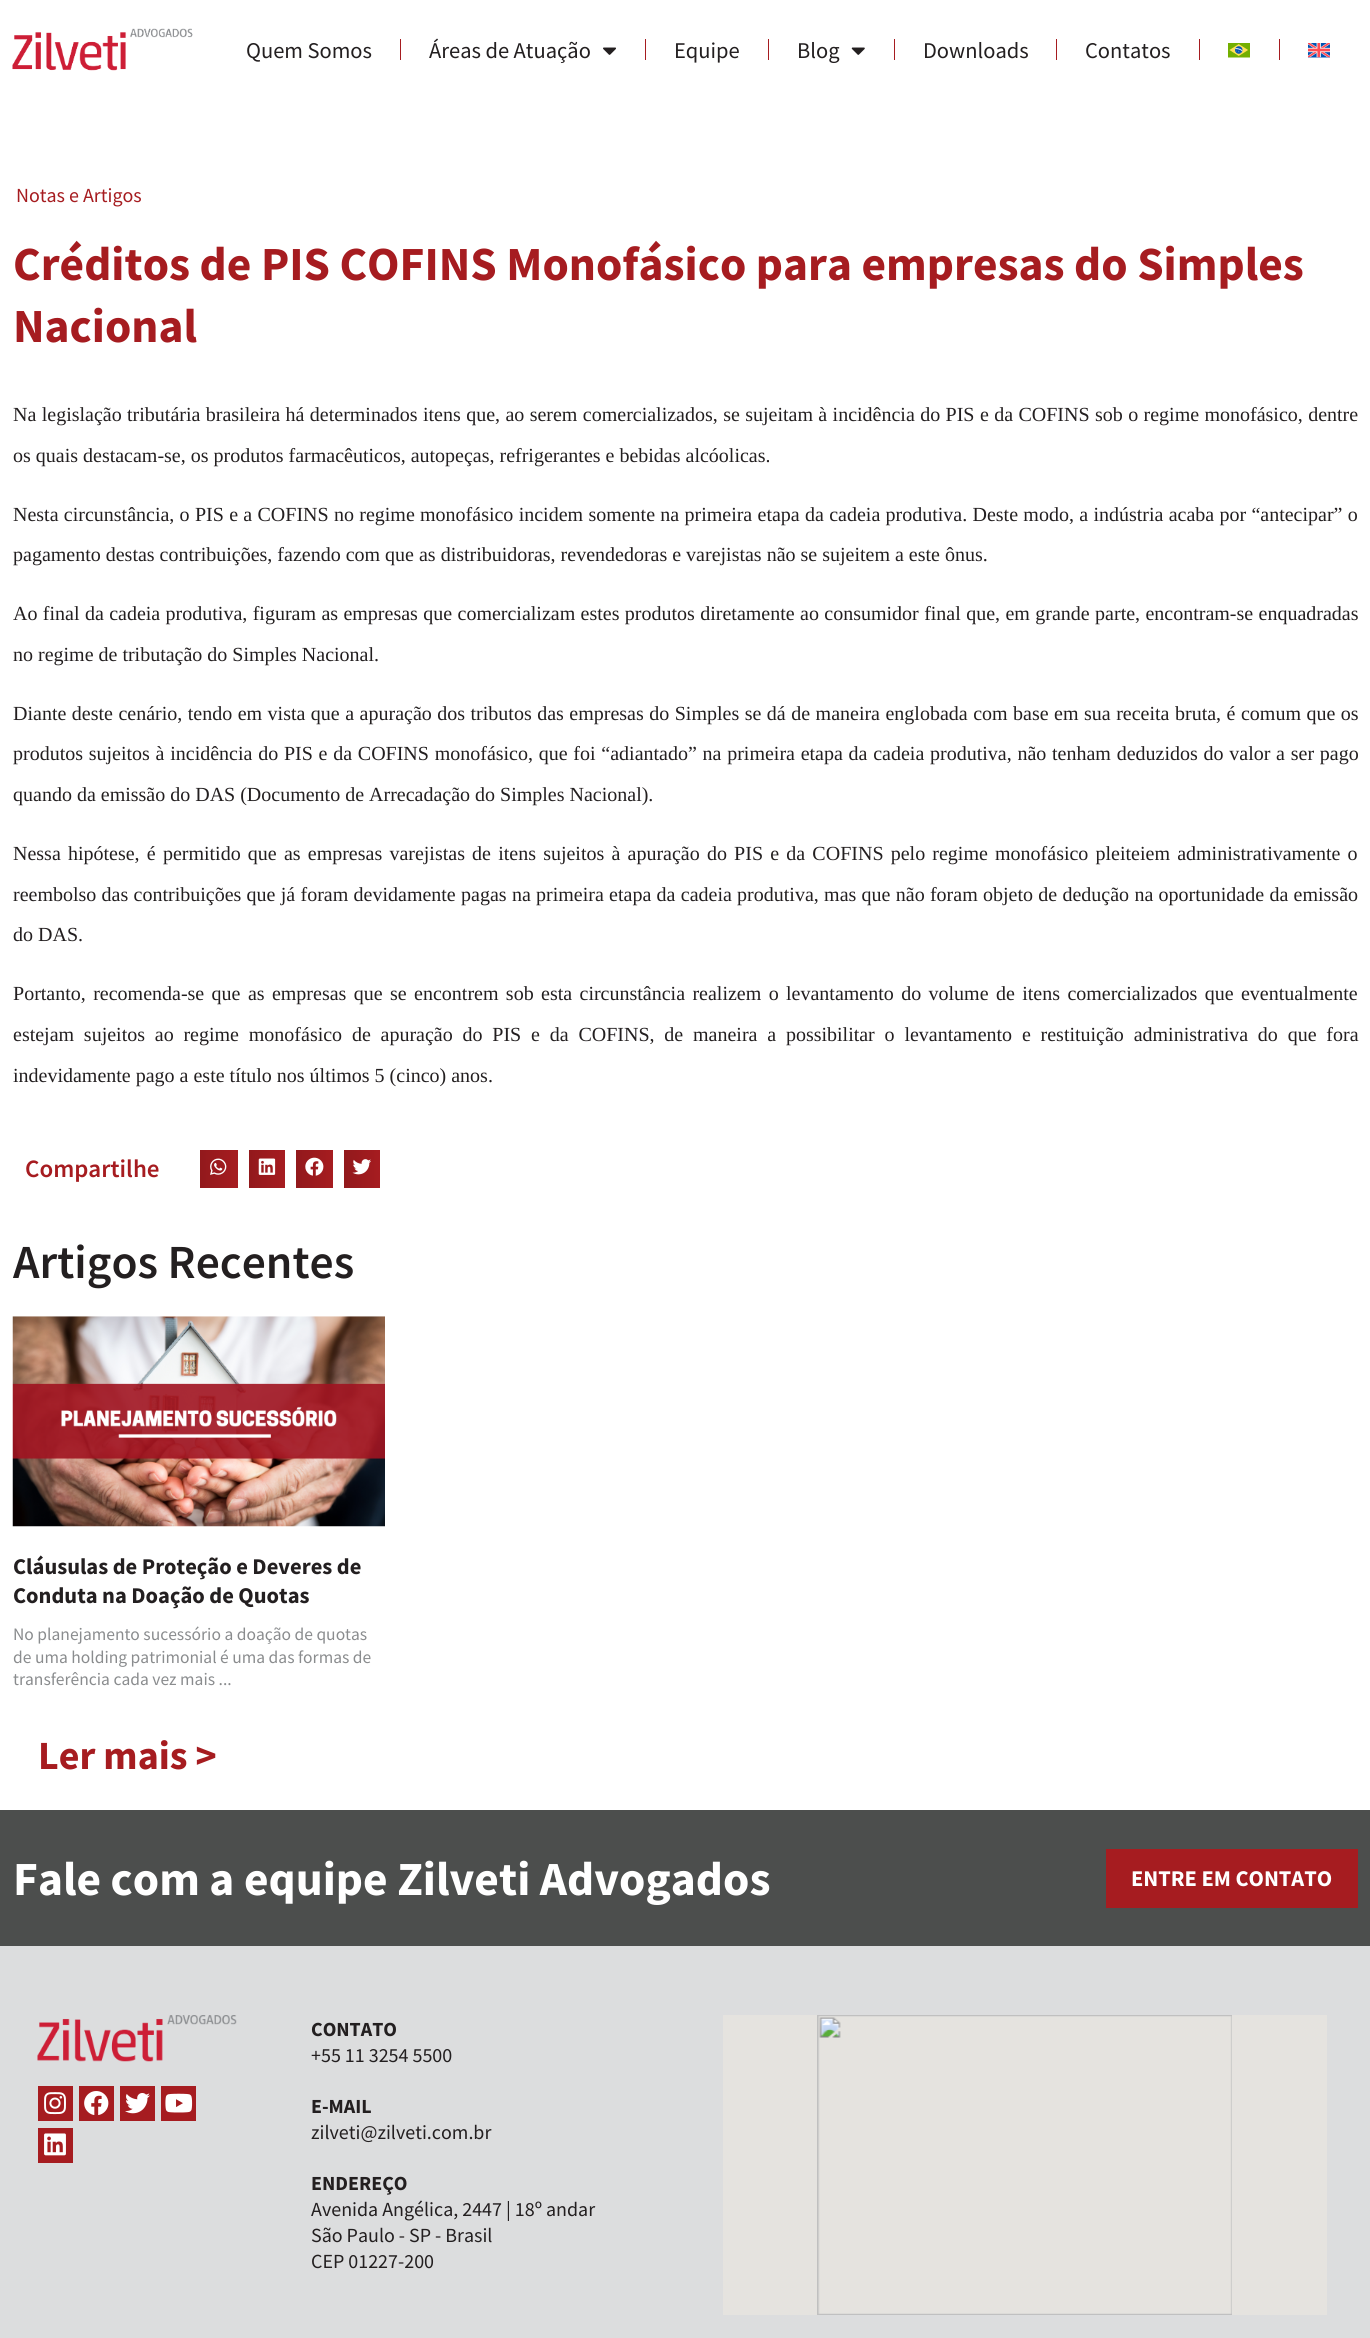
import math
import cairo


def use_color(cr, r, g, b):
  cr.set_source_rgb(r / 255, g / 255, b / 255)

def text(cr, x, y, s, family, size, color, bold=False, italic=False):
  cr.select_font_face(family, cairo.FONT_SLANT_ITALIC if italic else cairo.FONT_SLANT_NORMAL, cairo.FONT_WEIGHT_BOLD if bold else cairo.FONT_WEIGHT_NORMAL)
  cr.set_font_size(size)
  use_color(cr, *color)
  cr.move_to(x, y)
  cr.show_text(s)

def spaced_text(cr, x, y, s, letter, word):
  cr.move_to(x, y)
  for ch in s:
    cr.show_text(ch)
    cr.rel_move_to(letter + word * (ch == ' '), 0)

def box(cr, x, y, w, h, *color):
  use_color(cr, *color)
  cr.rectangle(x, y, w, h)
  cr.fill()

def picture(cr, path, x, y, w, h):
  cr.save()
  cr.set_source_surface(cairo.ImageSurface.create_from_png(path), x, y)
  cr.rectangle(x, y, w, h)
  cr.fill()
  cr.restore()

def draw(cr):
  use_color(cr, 255, 255, 255)
  cr.paint()
  picture(cr, "img_01.png", 12, 28, 181, 43)
  box(cr, 400, 39, 1, 21, 166, 28, 32)
  picture(cr, "img_02.png", 603, 47, 13, 8)
  box(cr, 645, 39, 1, 21, 166, 28, 32)
  box(cr, 768, 39, 1, 21, 166, 28, 32)
  picture(cr, "img_03.png", 851, 47, 14, 8)
  box(cr, 894, 39, 1, 21, 166, 28, 32)
  box(cr, 1056, 39, 1, 21, 166, 28, 32)
  box(cr, 1199, 39, 1, 21, 166, 28, 32)
  picture(cr, "img_04.png", 1228, 43, 22, 15)
  box(cr, 1279, 39, 1, 21, 166, 28, 32)
  picture(cr, "img_05.png", 1308, 43, 22, 15)
  gradient = cairo.LinearGradient(200, 1169, 238, 1169)
  gradient.add_color_stop_rgba(0, 0.573, 0.098, 0.11, 1)
  gradient.add_color_stop_rgba(1, 0.651, 0.11, 0.125, 1)
  cr.set_source(gradient)
  cr.rectangle(200, 1150, 38, 38)
  cr.fill()
  picture(cr, "img_06.png", 210, 1158, 17, 17)
  gradient = cairo.LinearGradient(249, 1169, 285, 1169)
  gradient.add_color_stop_rgba(0, 0.573, 0.098, 0.11, 1)
  gradient.add_color_stop_rgba(1, 0.651, 0.11, 0.125, 1)
  cr.set_source(gradient)
  cr.rectangle(249, 1150, 36, 38)
  cr.fill()
  picture(cr, "img_07.png", 258, 1158, 18, 17)
  gradient = cairo.LinearGradient(296, 1169, 333, 1169)
  gradient.add_color_stop_rgba(0, 0.573, 0.098, 0.11, 1)
  gradient.add_color_stop_rgba(1, 0.651, 0.11, 0.125, 1)
  cr.set_source(gradient)
  cr.rectangle(296, 1150, 37, 38)
  cr.fill()
  picture(cr, "img_08.png", 305, 1157, 19, 19)
  gradient = cairo.LinearGradient(344, 1169, 380, 1169)
  gradient.add_color_stop_rgba(0, 0.573, 0.098, 0.11, 1)
  gradient.add_color_stop_rgba(1, 0.651, 0.11, 0.125, 1)
  cr.set_source(gradient)
  cr.rectangle(344, 1150, 36, 38)
  cr.fill()
  picture(cr, "img_09.png", 352, 1159, 19, 16)
  picture(cr, "img_10.png", 12, 1316, 373, 211)
  box(cr, 0, 1810, 1370, 136, 76, 78, 77)
  box(cr, 1106, 1849, 252, 59, 166, 28, 32)
  box(cr, 0, 1946, 1370, 392, 220, 221, 222)
  picture(cr, "img_11.png", 37, 2015, 200, 47)
  box(cr, 38, 2086, 35, 35, 166, 28, 32)
  picture(cr, "img_12.png", 44, 2092, 22, 23)
  box(cr, 79, 2086, 35, 35, 166, 28, 32)
  picture(cr, "img_13.png", 84, 2091, 25, 24)
  box(cr, 120, 2086, 35, 35, 166, 28, 32)
  picture(cr, "img_14.png", 125, 2093, 25, 21)
  box(cr, 161, 2086, 35, 35, 166, 28, 32)
  picture(cr, "img_15.png", 165, 2093, 28, 20)
  box(cr, 38, 2128, 35, 35, 166, 28, 32)
  picture(cr, "img_16.png", 44, 2133, 22, 23)
  picture(cr, "img_17.png", 723, 2015, 604, 300)
  text(cr, 246, 58, "Quem Somos", "Source Sans Pro", 22.5, (35, 31, 32))
  text(cr, 429, 58, "Áreas de Atuação", "Source Sans Pro", 22.5, (35, 31, 32))
  text(cr, 674, 58, "Equipe", "Source Sans Pro", 22.5, (35, 31, 32))
  text(cr, 797, 58, "Blog", "Source Sans Pro", 22.5, (35, 31, 32))
  text(cr, 923, 58, "Downloads", "Source Sans Pro", 22.5, (35, 31, 32))
  text(cr, 1085, 58, "Contatos", "Source Sans Pro", 22.5, (35, 31, 32))
  text(cr, 16, 202, "Notas e Artigos", "Source Sans Pro", 20, (166, 28, 32))
  text(cr, 13, 280, "Créditos de PIS COFINS Monofásico para empresas do Simples", "Source Sans Pro", 47.5, (166, 28, 32), bold=True)
  text(cr, 13, 342, "Nacional", "Source Sans Pro", 47.5, (166, 28, 32), bold=True)
  cr.select_font_face("Liberation Serif")
  cr.set_font_size(20)
  use_color(cr, 35, 31, 32)
  spaced_text(cr, 13, 421, "Na legislação tributária brasileira há determinados itens que, ao serem comercializados, se sujeitam à incidência do PIS e da COFINS sob o regime monofásico, dentre", 0, 0.4)
  text(cr, 13, 462, "os quais destacam-se, os produtos farmacêuticos, autopeças, refrigerantes e bebidas alcóolicas.", "Liberation Serif", 20, (35, 31, 32))
  spaced_text(cr, 13, 521, "Nesta circunstância, o PIS e a COFINS no regime monofásico incidem somente na primeira etapa da cadeia produtiva. Deste modo, a indústria acaba por “antecipar” o", 0, 0.3)
  text(cr, 13, 561, "pagamento destas contribuições, fazendo com que as distribuidoras, revendedoras e varejistas não se sujeitem a este ônus.", "Liberation Serif", 20, (35, 31, 32))
  spaced_text(cr, 13, 620, "Ao final da cadeia produtiva, figuram as empresas que comercializam estes produtos diretamente ao consumidor final que, em grande parte, encontram-se enquadradas", 0, 0.4)
  text(cr, 13, 661, "no regime de tributação do Simples Nacional.", "Liberation Serif", 20, (35, 31, 32))
  spaced_text(cr, 13, 720, "Diante deste cenário, tendo em vista que a apuração dos tributos das empresas do Simples se dá de maneira englobada com base em sua receita bruta, é comum que os", 0, 0.5)
  spaced_text(cr, 13, 760, "produtos sujeitos à incidência do PIS e da COFINS monofásico, que foi “adiantado” na primeira etapa da cadeia produtiva, não tenham deduzidos do valor a ser pago", 0, 0.75)
  text(cr, 13, 801, "quando da emissão do DAS (Documento de Arrecadação do Simples Nacional).", "Liberation Serif", 20, (35, 31, 32))
  spaced_text(cr, 13, 860, "Nessa hipótese, é permitido que as empresas varejistas de itens sujeitos à apuração do PIS e da COFINS pelo regime monofásico pleiteiem administrativamente o", 0, 2.2)
  spaced_text(cr, 13, 901, "reembolso das contribuições que já foram devidamente pagas na primeira etapa da cadeia produtiva, mas que não foram objeto de dedução na oportunidade da emissão", 0, 0.3)
  text(cr, 13, 941, "do DAS.", "Liberation Serif", 20, (35, 31, 32))
  spaced_text(cr, 13, 1000, "Portanto, recomenda-se que as empresas que se encontrem sob esta circunstância realizem o levantamento do volume de itens comercializados que eventualmente", 0, 2.4)
  spaced_text(cr, 13, 1041, "estejam sujeitos ao regime monofásico de apuração do PIS e da COFINS, de maneira a possibilitar o levantamento e restituição administrativa do que fora", 0, 4.8)
  text(cr, 13, 1082, "indevidamente pago a este título nos últimos 5 (cinco) anos.", "Liberation Serif", 20, (35, 31, 32))
  text(cr, 25, 1177, "Compartilhe", "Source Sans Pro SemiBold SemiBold", 25, (166, 28, 32))
  text(cr, 13, 1278, "Artigos Recentes", "Source Sans Pro SemiBold SemiBold", 47.5, (35, 31, 32))
  text(cr, 13, 1574, "Cláusulas de Proteção e Deveres de", "Source Sans Pro", 22.5, (35, 31, 32), bold=True)
  text(cr, 13, 1603, "Conduta na Doação de Quotas", "Source Sans Pro", 22.5, (35, 31, 32), bold=True)
  text(cr, 13, 1640, "No planejamento sucessório a doação de quotas", "Source Sans Pro", 17.5, (138, 140, 142))
  text(cr, 13, 1663, "de uma holding patrimonial é uma das formas de", "Source Sans Pro", 17.5, (138, 140, 142))
  text(cr, 13, 1685, "transferência cada vez mais ...", "Source Sans Pro", 17.5, (138, 140, 142))
  text(cr, 38, 1769, "Ler mais >", "Source Sans Pro", 40, (166, 28, 32), bold=True)
  text(cr, 13, 1895, "Fale com a equipe Zilveti Advogados", "Source Sans Pro", 47.5, (255, 255, 255), bold=True)
  text(cr, 1131, 1886, "ENTRE EM CONTATO", "Source Sans Pro", 22.5, (255, 255, 255), bold=True)
  text(cr, 311, 2036, "CONTATO", "Source Sans Pro", 20, (35, 31, 32), bold=True)
  text(cr, 311, 2062, "+55 11 3254 5500", "Source Sans Pro", 20, (35, 31, 32))
  text(cr, 311, 2113, "E-MAIL", "Source Sans Pro", 20, (35, 31, 32), bold=True)
  text(cr, 311, 2139, "zilveti@zilveti.com.br", "Source Sans Pro", 20, (35, 31, 32))
  text(cr, 311, 2190, "ENDEREÇO", "Source Sans Pro", 20, (35, 31, 32), bold=True)
  text(cr, 311, 2216, "Avenida Angélica, 2447 | 18º andar", "Source Sans Pro", 20, (35, 31, 32))
  text(cr, 311, 2242, "São Paulo - SP - Brasil", "Source Sans Pro", 20, (35, 31, 32))
  text(cr, 311, 2268, "CEP 01227-200", "Source Sans Pro", 20, (35, 31, 32))


surface = cairo.ImageSurface(cairo.FORMAT_RGB24, 1370, 2338)
cr = cairo.Context(surface)
options = cairo.FontOptions()
options.set_hint_metrics(cairo.HINT_METRICS_OFF)
options.set_hint_style(cairo.HINT_STYLE_NONE)
cr.set_font_options(options)
cr.set_miter_limit(4)
draw(cr)
surface.write_to_png("out.png")
